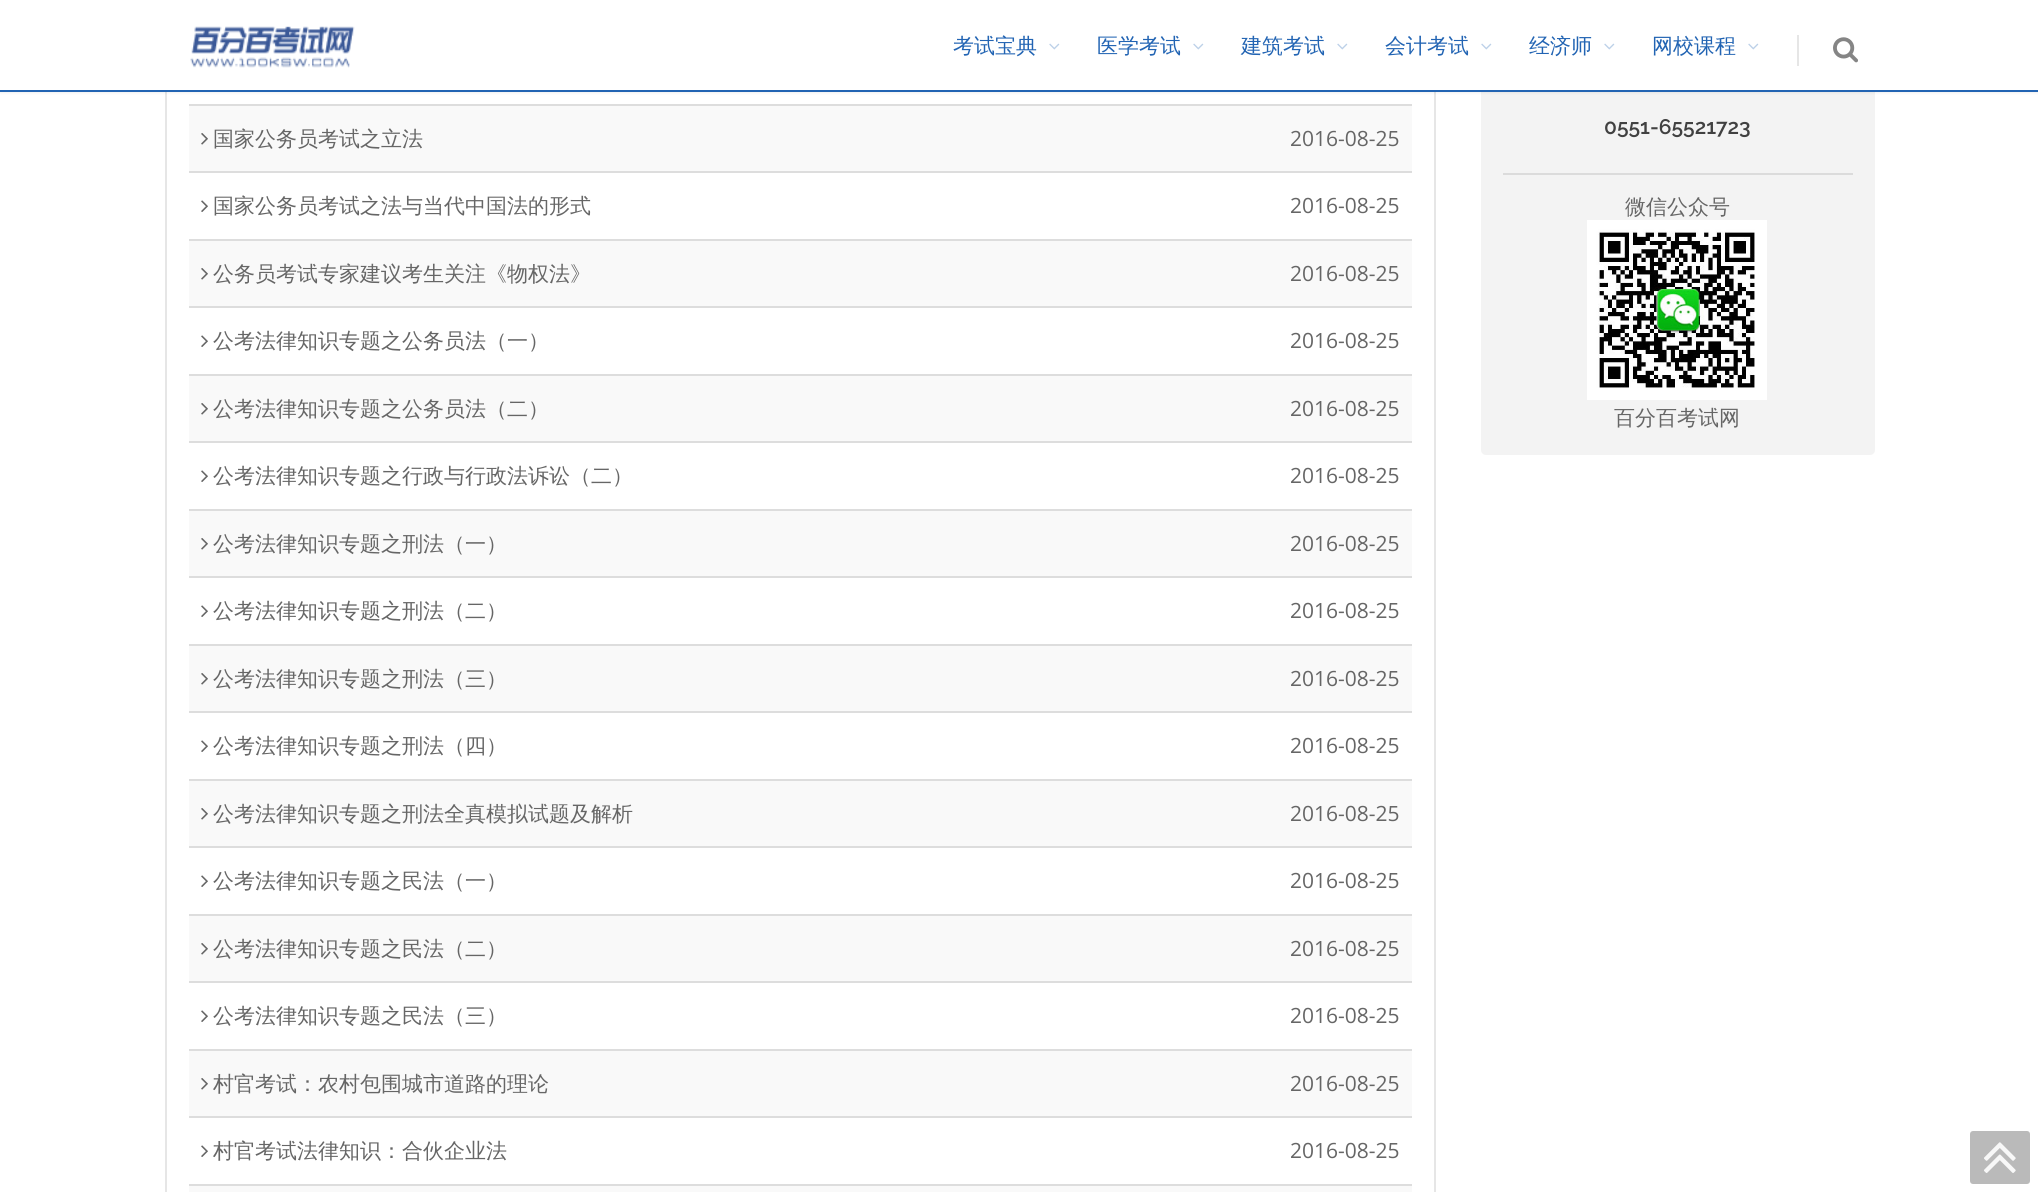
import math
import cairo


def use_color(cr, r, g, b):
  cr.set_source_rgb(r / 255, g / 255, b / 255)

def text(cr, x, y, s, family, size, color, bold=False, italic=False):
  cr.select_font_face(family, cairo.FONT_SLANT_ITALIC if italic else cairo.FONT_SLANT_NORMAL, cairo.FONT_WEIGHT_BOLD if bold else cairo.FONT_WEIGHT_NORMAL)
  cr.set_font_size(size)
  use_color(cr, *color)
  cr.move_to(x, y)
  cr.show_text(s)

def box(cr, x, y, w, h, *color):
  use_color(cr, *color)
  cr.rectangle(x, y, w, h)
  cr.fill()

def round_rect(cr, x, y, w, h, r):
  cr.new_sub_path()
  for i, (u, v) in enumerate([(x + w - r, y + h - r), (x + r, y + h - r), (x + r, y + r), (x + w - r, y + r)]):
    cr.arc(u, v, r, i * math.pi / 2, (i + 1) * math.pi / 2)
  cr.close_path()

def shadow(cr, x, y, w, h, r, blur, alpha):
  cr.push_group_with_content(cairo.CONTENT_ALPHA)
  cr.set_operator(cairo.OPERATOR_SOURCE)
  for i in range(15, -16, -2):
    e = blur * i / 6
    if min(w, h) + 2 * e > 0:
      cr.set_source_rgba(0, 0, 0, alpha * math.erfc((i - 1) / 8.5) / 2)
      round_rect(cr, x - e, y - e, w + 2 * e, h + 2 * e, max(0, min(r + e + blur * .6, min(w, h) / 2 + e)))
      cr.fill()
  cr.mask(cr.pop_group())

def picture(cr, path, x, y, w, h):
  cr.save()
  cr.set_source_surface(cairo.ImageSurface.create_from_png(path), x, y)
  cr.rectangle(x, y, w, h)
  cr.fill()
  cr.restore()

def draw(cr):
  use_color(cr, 255, 255, 255)
  cr.paint()
  cr.rectangle(166, -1, 1269, 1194)
  use_color(cr, 230, 230, 230)
  cr.stroke()
  use_color(cr, 243, 243, 243)
  round_rect(cr, 1481, 6, 394, 449, 5)
  cr.fill()
  use_color(cr, 0, 0, 0)
  shadow(cr, 0, 0, 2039, 92, 0, 1.5, 0.1)
  box(cr, 0, 0, 2038, 90, 255, 255, 255)
  box(cr, 0, 90, 2038, 2, 34, 100, 179)
  picture(cr, "img_01.png", 190, 26, 165, 42)
  picture(cr, "img_02.png", 1049, 43, 11, 7)
  picture(cr, "img_02.png", 1193, 43, 11, 7)
  picture(cr, "img_02.png", 1337, 43, 11, 7)
  picture(cr, "img_02.png", 1481, 43, 11, 7)
  picture(cr, "img_02.png", 1604, 43, 11, 7)
  picture(cr, "img_02.png", 1748, 43, 11, 7)
  box(cr, 1797, 35, 2, 31, 230, 230, 230)
  picture(cr, "img_03.png", 1833, 37, 25, 26)
  box(cr, 189, 106, 1223, 65, 249, 249, 249)
  box(cr, 189, 104, 1223, 2, 221, 221, 221)
  picture(cr, "img_04.png", 201, 133, 7, 12)
  box(cr, 189, 171, 1223, 2, 221, 221, 221)
  picture(cr, "img_05.png", 201, 200, 7, 12)
  box(cr, 189, 241, 1223, 65, 249, 249, 249)
  box(cr, 189, 239, 1223, 2, 221, 221, 221)
  picture(cr, "img_04.png", 201, 268, 7, 12)
  box(cr, 189, 306, 1223, 2, 221, 221, 221)
  picture(cr, "img_05.png", 201, 335, 7, 12)
  box(cr, 189, 376, 1223, 65, 249, 249, 249)
  box(cr, 189, 374, 1223, 2, 221, 221, 221)
  picture(cr, "img_04.png", 201, 403, 7, 12)
  box(cr, 189, 441, 1223, 2, 221, 221, 221)
  picture(cr, "img_05.png", 201, 470, 7, 12)
  box(cr, 189, 511, 1223, 65, 249, 249, 249)
  box(cr, 189, 509, 1223, 2, 221, 221, 221)
  picture(cr, "img_04.png", 201, 538, 7, 12)
  box(cr, 189, 576, 1223, 2, 221, 221, 221)
  picture(cr, "img_05.png", 201, 605, 7, 12)
  box(cr, 189, 646, 1223, 65, 249, 249, 249)
  box(cr, 189, 644, 1223, 2, 221, 221, 221)
  picture(cr, "img_04.png", 201, 673, 7, 12)
  box(cr, 189, 711, 1223, 2, 221, 221, 221)
  picture(cr, "img_05.png", 201, 740, 7, 12)
  box(cr, 189, 781, 1223, 65, 249, 249, 249)
  box(cr, 189, 779, 1223, 2, 221, 221, 221)
  picture(cr, "img_04.png", 201, 808, 7, 12)
  box(cr, 189, 846, 1223, 2, 221, 221, 221)
  picture(cr, "img_05.png", 201, 875, 7, 12)
  box(cr, 189, 916, 1223, 65, 249, 249, 249)
  box(cr, 189, 914, 1223, 2, 221, 221, 221)
  picture(cr, "img_04.png", 201, 943, 7, 12)
  box(cr, 189, 981, 1223, 2, 221, 221, 221)
  picture(cr, "img_05.png", 201, 1010, 7, 12)
  box(cr, 189, 1051, 1223, 65, 249, 249, 249)
  box(cr, 189, 1049, 1223, 2, 221, 221, 221)
  picture(cr, "img_04.png", 201, 1078, 7, 12)
  box(cr, 189, 1116, 1223, 2, 221, 221, 221)
  picture(cr, "img_05.png", 201, 1145, 7, 12)
  box(cr, 189, 1186, 1223, 6, 249, 249, 249)
  box(cr, 189, 1184, 1223, 2, 221, 221, 221)
  box(cr, 1503, 173, 350, 2, 219, 219, 219)
  picture(cr, "img_06.png", 1587, 220, 180, 180)
  use_color(cr, 186, 186, 186)
  round_rect(cr, 1970, 1131, 60, 53, 3)
  cr.fill()
  picture(cr, "img_07.png", 1984, 1142, 32, 31)
  text(cr, 953, 53, "考试宝典", "WenQuanYi Zen Hei Medium", 21, (34, 100, 179))
  text(cr, 1097, 53, "医学考试", "WenQuanYi Zen Hei Medium", 21, (34, 100, 179))
  text(cr, 1241, 53, "建筑考试", "WenQuanYi Zen Hei Medium", 21, (34, 100, 179))
  text(cr, 1385, 53, "会计考试", "WenQuanYi Zen Hei Medium", 21, (34, 100, 179))
  text(cr, 1529, 53, "经济师", "WenQuanYi Zen Hei Medium", 21, (34, 100, 179))
  text(cr, 1652, 53, "网校课程", "WenQuanYi Zen Hei Medium", 21, (34, 100, 179))
  text(cr, 213, 146, "国家公务员考试之立法", "WenQuanYi Zen Hei Medium", 21, (102, 102, 102))
  text(cr, 1290, 146, "2016-08-25", "Open Sans", 21, (102, 102, 102))
  text(cr, 213, 213, "国家公务员考试之法与当代中国法的形式", "WenQuanYi Zen Hei Medium", 21, (102, 102, 102))
  text(cr, 1290, 213, "2016-08-25", "Open Sans", 21, (102, 102, 102))
  text(cr, 213, 281, "公务员考试专家建议考生关注《物权法》", "WenQuanYi Zen Hei Medium", 21, (102, 102, 102))
  text(cr, 1290, 281, "2016-08-25", "Open Sans", 21, (102, 102, 102))
  text(cr, 213, 348, "公考法律知识专题之公务员法（一）", "WenQuanYi Zen Hei Medium", 21, (102, 102, 102))
  text(cr, 1290, 348, "2016-08-25", "Open Sans", 21, (102, 102, 102))
  text(cr, 213, 416, "公考法律知识专题之公务员法（二）", "WenQuanYi Zen Hei Medium", 21, (102, 102, 102))
  text(cr, 1290, 416, "2016-08-25", "Open Sans", 21, (102, 102, 102))
  text(cr, 213, 483, "公考法律知识专题之行政与行政法诉讼（二）", "WenQuanYi Zen Hei Medium", 21, (102, 102, 102))
  text(cr, 1290, 483, "2016-08-25", "Open Sans", 21, (102, 102, 102))
  text(cr, 213, 551, "公考法律知识专题之刑法（一）", "WenQuanYi Zen Hei Medium", 21, (102, 102, 102))
  text(cr, 1290, 551, "2016-08-25", "Open Sans", 21, (102, 102, 102))
  text(cr, 213, 618, "公考法律知识专题之刑法（二）", "WenQuanYi Zen Hei Medium", 21, (102, 102, 102))
  text(cr, 1290, 618, "2016-08-25", "Open Sans", 21, (102, 102, 102))
  text(cr, 213, 686, "公考法律知识专题之刑法（三）", "WenQuanYi Zen Hei Medium", 21, (102, 102, 102))
  text(cr, 1290, 686, "2016-08-25", "Open Sans", 21, (102, 102, 102))
  text(cr, 213, 753, "公考法律知识专题之刑法（四）", "WenQuanYi Zen Hei Medium", 21, (102, 102, 102))
  text(cr, 1290, 753, "2016-08-25", "Open Sans", 21, (102, 102, 102))
  text(cr, 213, 821, "公考法律知识专题之刑法全真模拟试题及解析", "WenQuanYi Zen Hei Medium", 21, (102, 102, 102))
  text(cr, 1290, 821, "2016-08-25", "Open Sans", 21, (102, 102, 102))
  text(cr, 213, 888, "公考法律知识专题之民法（一）", "WenQuanYi Zen Hei Medium", 21, (102, 102, 102))
  text(cr, 1290, 888, "2016-08-25", "Open Sans", 21, (102, 102, 102))
  text(cr, 213, 956, "公考法律知识专题之民法（二）", "WenQuanYi Zen Hei Medium", 21, (102, 102, 102))
  text(cr, 1290, 956, "2016-08-25", "Open Sans", 21, (102, 102, 102))
  text(cr, 213, 1023, "公考法律知识专题之民法（三）", "WenQuanYi Zen Hei Medium", 21, (102, 102, 102))
  text(cr, 1290, 1023, "2016-08-25", "Open Sans", 21, (102, 102, 102))
  text(cr, 213, 1091, "村官考试：农村包围城市道路的理论", "WenQuanYi Zen Hei Medium", 21, (102, 102, 102))
  text(cr, 1290, 1091, "2016-08-25", "Open Sans", 21, (102, 102, 102))
  text(cr, 213, 1158, "村官考试法律知识：合伙企业法", "WenQuanYi Zen Hei Medium", 21, (102, 102, 102))
  text(cr, 1290, 1158, "2016-08-25", "Open Sans", 21, (102, 102, 102))
  text(cr, 1604, 134, "0551-65521723", "Raleway SemiBold", 21, (65, 65, 65))
  text(cr, 1625, 214, "微信公众号", "WenQuanYi Zen Hei Medium", 21, (102, 102, 102))
  text(cr, 1614, 425, "百分百考试网", "WenQuanYi Zen Hei Medium", 21, (102, 102, 102))


surface = cairo.ImageSurface(cairo.FORMAT_RGB24, 2038, 1192)
cr = cairo.Context(surface)
options = cairo.FontOptions()
options.set_hint_metrics(cairo.HINT_METRICS_OFF)
options.set_hint_style(cairo.HINT_STYLE_NONE)
cr.set_font_options(options)
cr.set_miter_limit(4)
draw(cr)
surface.write_to_png("out.png")
